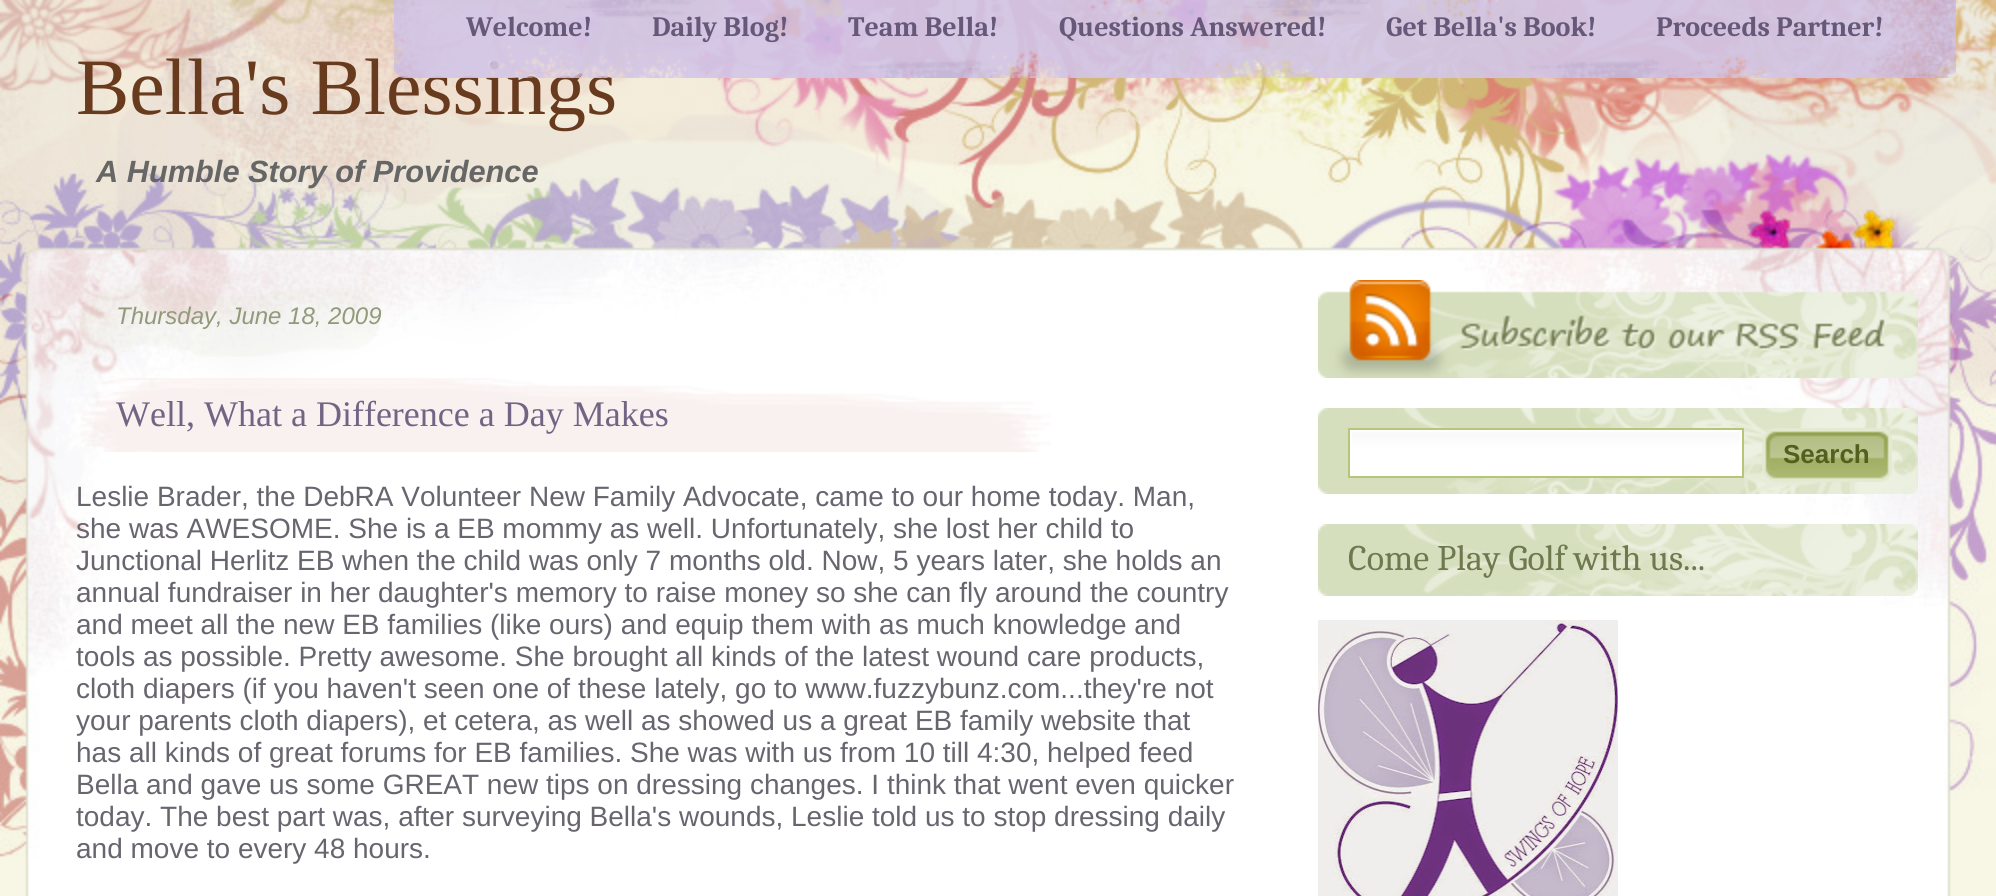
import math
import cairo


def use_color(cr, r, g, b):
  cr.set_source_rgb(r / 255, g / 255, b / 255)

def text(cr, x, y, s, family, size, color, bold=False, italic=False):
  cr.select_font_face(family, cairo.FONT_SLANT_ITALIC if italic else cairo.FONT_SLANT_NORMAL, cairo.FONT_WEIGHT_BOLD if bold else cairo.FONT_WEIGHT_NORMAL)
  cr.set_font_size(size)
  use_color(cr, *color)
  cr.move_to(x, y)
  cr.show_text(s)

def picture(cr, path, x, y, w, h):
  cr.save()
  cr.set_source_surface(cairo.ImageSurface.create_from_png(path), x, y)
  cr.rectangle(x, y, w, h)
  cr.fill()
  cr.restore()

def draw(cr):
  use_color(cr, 248, 247, 229)
  cr.paint()
  picture(cr, "img_01.png", 25, 859, 1926, 37)
  picture(cr, "img_02.png", 0, 0, 1996, 859)
  picture(cr, "img_05.png", 79, 283, 301, 74)
  picture(cr, "img_06.png", 80, 378, 971, 74)
  picture(cr, "img_07.png", 1318, 280, 600, 98)
  picture(cr, "img_08.png", 1318, 408, 600, 86)
  picture(cr, "img_09.png", 1350, 430, 392, 46)
  cr.rectangle(1349, 429, 394, 48)
  use_color(cr, 183, 197, 122)
  cr.stroke()
  picture(cr, "img_10.png", 1762, 428, 130, 54)
  picture(cr, "img_11.png", 1318, 524, 600, 72)
  picture(cr, "img_12.png", 1318, 620, 300, 276)
  text(cr, 76, 114, "Bella's Blessings", "Liberation Serif", 80, (104, 58, 30))
  picture(cr, "img_04.png", 436, 0, 1520, 78)
  text(cr, 1656, 36, "Proceeds Partner!", "Caladea", 28, (101, 88, 121), bold=True)
  text(cr, 1386, 36, "Get Bella's Book!", "Caladea", 28, (101, 88, 121), bold=True)
  text(cr, 1059, 36, "Questions Answered!", "Caladea", 28, (101, 88, 121), bold=True)
  text(cr, 848, 36, "Team Bella!", "Caladea", 28, (101, 88, 121), bold=True)
  text(cr, 652, 36, "Daily Blog!", "Caladea", 28, (101, 88, 121), bold=True)
  text(cr, 466, 36, "Welcome!", "Caladea", 28, (101, 88, 121), bold=True)
  picture(cr, "img_03.png", 394, 0, 42, 78)
  text(cr, 96, 182, "A Humble Story of Providence", "Liberation Sans", 30.75, (102, 102, 102), bold=True, italic=True)
  text(cr, 116, 324, "Thursday, June 18, 2009", "Liberation Sans", 24, (146, 154, 123), italic=True)
  text(cr, 116, 426, "Well, What a Difference a Day Makes", "Liberation Serif", 36, (114, 100, 133))
  text(cr, 76, 506, "Leslie Brader, the DebRA Volunteer New Family Advocate, came to our home today. Man,", "Liberation Sans", 28, (105, 101, 111))
  text(cr, 76, 538, "she was AWESOME. She is a EB mommy as well. Unfortunately, she lost her child to", "Liberation Sans", 28, (105, 101, 111))
  text(cr, 76, 570, "Junctional Herlitz EB when the child was only 7 months old. Now, 5 years later, she holds an", "Liberation Sans", 28, (105, 101, 111))
  text(cr, 76, 602, "annual fundraiser in her daughter's memory to raise money so she can fly around the country", "Liberation Sans", 28, (105, 101, 111))
  text(cr, 76, 634, "and meet all the new EB families (like ours) and equip them with as much knowledge and", "Liberation Sans", 28, (105, 101, 111))
  text(cr, 76, 666, "tools as possible. Pretty awesome. She brought all kinds of the latest wound care products,", "Liberation Sans", 28, (105, 101, 111))
  text(cr, 76, 698, "cloth diapers (if you haven't seen one of these lately, go to www.fuzzybunz.com...they're not", "Liberation Sans", 28, (105, 101, 111))
  text(cr, 76, 730, "your parents cloth diapers), et cetera, as well as showed us a great EB family website that", "Liberation Sans", 28, (105, 101, 111))
  text(cr, 76, 762, "has all kinds of great forums for EB families. She was with us from 10 till 4:30, helped feed", "Liberation Sans", 28, (105, 101, 111))
  text(cr, 76, 794, "Bella and gave us some GREAT new tips on dressing changes. I think that went even quicker", "Liberation Sans", 28, (105, 101, 111))
  text(cr, 76, 826, "today. The best part was, after surveying Bella's wounds, Leslie told us to stop dressing daily", "Liberation Sans", 28, (105, 101, 111))
  text(cr, 76, 858, "and move to every 48 hours.", "Liberation Sans", 28, (105, 101, 111))
  text(cr, 1783, 463, "Search", "Liberation Sans", 26, (82, 95, 29), bold=True)
  text(cr, 1348, 570, "Come Play Golf with us...", "Caladea", 36, (110, 121, 79))


surface = cairo.ImageSurface(cairo.FORMAT_RGB24, 1996, 896)
cr = cairo.Context(surface)
options = cairo.FontOptions()
options.set_hint_metrics(cairo.HINT_METRICS_OFF)
options.set_hint_style(cairo.HINT_STYLE_NONE)
cr.set_font_options(options)
cr.set_miter_limit(4)
draw(cr)
surface.write_to_png("out.png")
